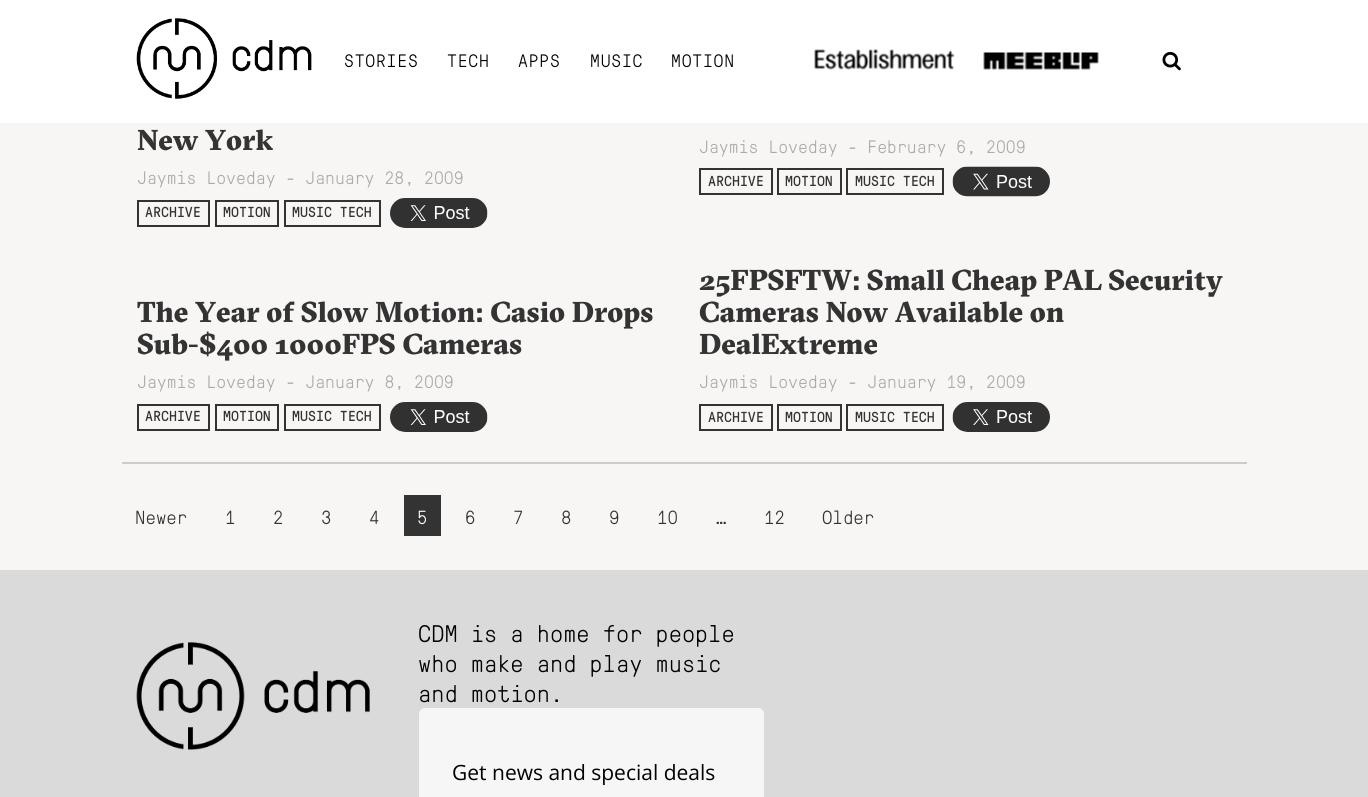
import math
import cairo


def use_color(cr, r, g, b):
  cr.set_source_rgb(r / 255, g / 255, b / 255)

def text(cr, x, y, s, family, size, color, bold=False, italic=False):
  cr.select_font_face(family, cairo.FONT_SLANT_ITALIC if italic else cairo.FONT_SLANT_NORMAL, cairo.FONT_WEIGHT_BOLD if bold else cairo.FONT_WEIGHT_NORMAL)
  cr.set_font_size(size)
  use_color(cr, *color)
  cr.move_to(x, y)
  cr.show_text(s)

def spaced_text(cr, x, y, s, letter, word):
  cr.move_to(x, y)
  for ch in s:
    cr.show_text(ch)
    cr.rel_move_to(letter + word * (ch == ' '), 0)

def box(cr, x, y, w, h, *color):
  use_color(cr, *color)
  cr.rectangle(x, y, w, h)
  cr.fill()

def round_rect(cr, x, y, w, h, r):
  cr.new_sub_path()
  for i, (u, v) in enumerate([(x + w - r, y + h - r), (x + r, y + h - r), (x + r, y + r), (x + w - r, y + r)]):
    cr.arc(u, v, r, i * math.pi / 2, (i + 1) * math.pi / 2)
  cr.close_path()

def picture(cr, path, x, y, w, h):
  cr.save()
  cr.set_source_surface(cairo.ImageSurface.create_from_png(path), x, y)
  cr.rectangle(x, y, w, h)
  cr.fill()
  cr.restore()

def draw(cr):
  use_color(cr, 247, 246, 244)
  cr.paint()
  box(cr, 0, 0, 1368, 123, 255, 255, 255)
  picture(cr, "img_01.png", 136, 18, 176, 81)
  picture(cr, "img_02.png", 814, 49, 141, 21)
  picture(cr, "img_03.png", 983, 52, 116, 18)
  picture(cr, "img_04.png", 1162, 51, 19, 20)
  cr.rectangle(138, 201, 71, 25)
  use_color(cr, 51, 51, 51)
  cr.stroke()
  cr.rectangle(216, 201, 62, 25)
  cr.stroke()
  cr.rectangle(285, 201, 95, 25)
  cr.stroke()
  picture(cr, "img_05.png", 390, 198, 98, 30)
  cr.rectangle(700, 169, 72, 25)
  cr.stroke()
  cr.rectangle(778, 169, 63, 25)
  cr.stroke()
  cr.rectangle(847, 169, 96, 25)
  cr.stroke()
  picture(cr, "img_06.png", 952, 166, 98, 31)
  cr.rectangle(138, 405, 71, 25)
  cr.stroke()
  cr.rectangle(216, 405, 62, 25)
  cr.stroke()
  cr.rectangle(285, 405, 95, 25)
  cr.stroke()
  picture(cr, "img_05.png", 390, 402, 98, 30)
  cr.rectangle(700, 405, 72, 25)
  cr.stroke()
  cr.rectangle(778, 405, 63, 25)
  cr.stroke()
  cr.rectangle(847, 405, 96, 25)
  cr.stroke()
  picture(cr, "img_07.png", 952, 402, 98, 30)
  box(cr, 122, 462, 1125, 2, 204, 204, 204)
  box(cr, 404, 495, 37, 41, 51, 51, 51)
  box(cr, 0, 570, 1368, 227, 218, 218, 218)
  picture(cr, "img_08.png", 136, 642, 234, 108)
  use_color(cr, 246, 246, 246)
  round_rect(cr, 419, 708, 345, 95, 6)
  cr.fill()
  cr.select_font_face("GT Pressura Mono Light")
  cr.set_font_size(18)
  use_color(cr, 0, 0, 0)
  spaced_text(cr, 344, 67, "STORIES", 0.75, 0)
  spaced_text(cr, 447, 67, "TECH", 0.75, 0)
  spaced_text(cr, 518, 67, "APPS", 0.75, 0)
  spaced_text(cr, 590, 67, "MUSIC", 0.75, 0)
  spaced_text(cr, 671, 67, "MOTION", 0.75, 0)
  text(cr, 137, 150, "New York", "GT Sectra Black", 28.75, (51, 51, 51))
  text(cr, 137, 184, "Jaymis Loveday - January 28, 2009", "GT Pressura Mono Light", 18, (170, 170, 170))
  text(cr, 145, 217, "ARCHIVE", "GT Pressura Mono", 14.5, (51, 51, 51))
  text(cr, 223, 217, "MOTION", "GT Pressura Mono", 14.5, (51, 51, 51))
  text(cr, 292, 217, "MUSIC TECH", "GT Pressura Mono", 14.5, (51, 51, 51))
  text(cr, 699, 153, "Jaymis Loveday - February 6, 2009", "GT Pressura Mono Light", 18, (170, 170, 170))
  text(cr, 708, 186, "ARCHIVE", "GT Pressura Mono", 14.5, (51, 51, 51))
  text(cr, 785, 186, "MOTION", "GT Pressura Mono", 14.5, (51, 51, 51))
  text(cr, 855, 186, "MUSIC TECH", "GT Pressura Mono", 14.5, (51, 51, 51))
  text(cr, 137, 322, "The Year of Slow Motion: Casio Drops", "GT Sectra Black", 28.75, (51, 51, 51))
  text(cr, 137, 354, "Sub-$400 1000FPS Cameras", "GT Sectra Black", 28.75, (51, 51, 51))
  text(cr, 137, 388, "Jaymis Loveday - January 8, 2009", "GT Pressura Mono Light", 18, (170, 170, 170))
  text(cr, 145, 421, "ARCHIVE", "GT Pressura Mono", 14.5, (51, 51, 51))
  text(cr, 223, 421, "MOTION", "GT Pressura Mono", 14.5, (51, 51, 51))
  text(cr, 292, 421, "MUSIC TECH", "GT Pressura Mono", 14.5, (51, 51, 51))
  text(cr, 699, 290, "25FPSFTW: Small Cheap PAL Security", "GT Sectra Black", 28.75, (51, 51, 51))
  text(cr, 699, 322, "Cameras Now Available on", "GT Sectra Black", 28.75, (51, 51, 51))
  text(cr, 699, 354, "DealExtreme", "GT Sectra Black", 28.75, (51, 51, 51))
  text(cr, 699, 388, "Jaymis Loveday - January 19, 2009", "GT Pressura Mono Light", 18, (170, 170, 170))
  text(cr, 708, 422, "ARCHIVE", "GT Pressura Mono", 14.5, (51, 51, 51))
  text(cr, 785, 422, "MOTION", "GT Pressura Mono", 14.5, (51, 51, 51))
  text(cr, 855, 422, "MUSIC TECH", "GT Pressura Mono", 14.5, (51, 51, 51))
  text(cr, 135, 524, "Newer", "GT Pressura Mono Light", 19, (51, 51, 51))
  text(cr, 225, 524, "1", "GT Pressura Mono Light", 19, (51, 51, 51))
  text(cr, 273, 524, "2", "GT Pressura Mono Light", 19, (51, 51, 51))
  text(cr, 321, 524, "3", "GT Pressura Mono Light", 19, (51, 51, 51))
  text(cr, 369, 524, "4", "GT Pressura Mono Light", 19, (51, 51, 51))
  text(cr, 417, 524, "5", "GT Pressura Mono Light", 19, (255, 255, 255))
  text(cr, 465, 524, "6", "GT Pressura Mono Light", 19, (51, 51, 51))
  text(cr, 513, 524, "7", "GT Pressura Mono Light", 19, (51, 51, 51))
  text(cr, 561, 524, "8", "GT Pressura Mono Light", 19, (51, 51, 51))
  text(cr, 609, 524, "9", "GT Pressura Mono Light", 19, (51, 51, 51))
  text(cr, 657, 524, "10", "GT Pressura Mono Light", 19, (51, 51, 51))
  text(cr, 716, 524, "…", "GT Pressura Mono Light", 19, (51, 51, 51))
  text(cr, 764, 524, "12", "GT Pressura Mono Light", 19, (51, 51, 51))
  text(cr, 822, 524, "Older", "GT Pressura Mono Light", 19, (51, 51, 51))
  text(cr, 418, 642, "CDM is a home for people", "GT Pressura Mono Light", 24, (0, 0, 0))
  text(cr, 418, 672, "who make and play music", "GT Pressura Mono Light", 24, (0, 0, 0))
  text(cr, 418, 702, "and motion.", "GT Pressura Mono Light", 24, (0, 0, 0))
  text(cr, 452, 780, "Get news and special deals", "Open Sans", 21, (0, 0, 0))


surface = cairo.ImageSurface(cairo.FORMAT_RGB24, 1368, 797)
cr = cairo.Context(surface)
options = cairo.FontOptions()
options.set_hint_metrics(cairo.HINT_METRICS_OFF)
options.set_hint_style(cairo.HINT_STYLE_NONE)
cr.set_font_options(options)
cr.set_miter_limit(4)
draw(cr)
surface.write_to_png("out.png")
